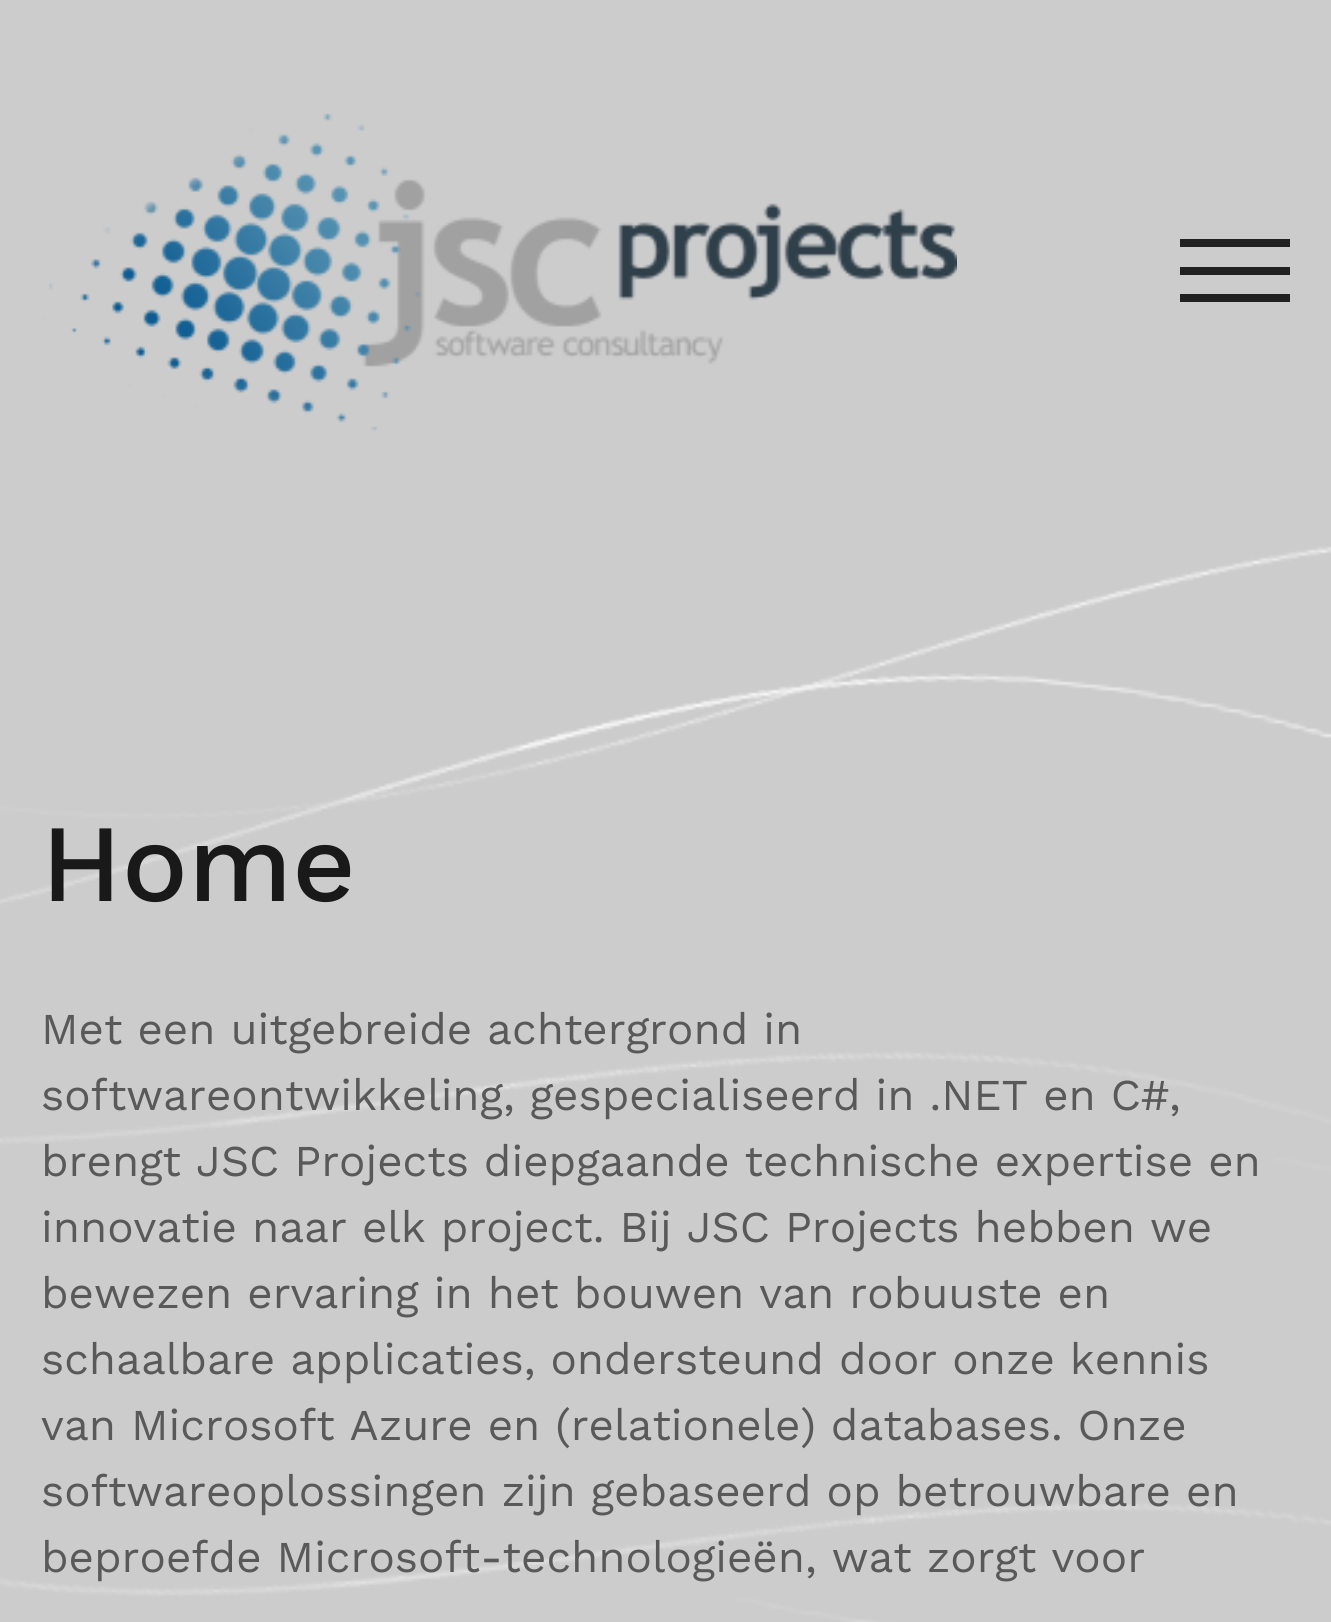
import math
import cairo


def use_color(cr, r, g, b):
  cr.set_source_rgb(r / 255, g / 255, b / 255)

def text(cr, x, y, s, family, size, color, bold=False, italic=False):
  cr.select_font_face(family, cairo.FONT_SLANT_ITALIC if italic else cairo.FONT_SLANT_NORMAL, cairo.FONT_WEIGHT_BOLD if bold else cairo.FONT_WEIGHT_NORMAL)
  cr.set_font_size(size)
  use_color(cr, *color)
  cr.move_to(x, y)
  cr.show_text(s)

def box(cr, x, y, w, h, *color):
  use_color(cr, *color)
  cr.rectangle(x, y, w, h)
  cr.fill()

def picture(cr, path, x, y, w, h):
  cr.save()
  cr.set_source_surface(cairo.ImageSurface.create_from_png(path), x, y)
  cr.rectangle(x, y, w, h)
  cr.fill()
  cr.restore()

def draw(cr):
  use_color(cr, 204, 204, 204)
  cr.paint()
  picture(cr, "img_01.png", 0, 546, 1331, 1076)
  picture(cr, "img_02.png", 42, 113, 915, 318)
  box(cr, 1180, 267, 110, 8, 33, 33, 33)
  box(cr, 1180, 239, 110, 8, 33, 33, 33)
  box(cr, 1180, 294, 110, 8, 33, 33, 33)
  text(cr, 41, 901, "Home", "Work Sans Medium", 110, (25, 25, 25))
  text(cr, 41, 1044, "Met een uitgebreide achtergrond in", "Work Sans", 44, (89, 89, 89))
  text(cr, 41, 1110, "softwareontwikkeling, gespecialiseerd in .NET en C#,", "Work Sans", 44, (89, 89, 89))
  text(cr, 41, 1176, "brengt JSC Projects diepgaande technische expertise en", "Work Sans", 44, (89, 89, 89))
  text(cr, 41, 1242, "innovatie naar elk project. Bij JSC Projects hebben we", "Work Sans", 44, (89, 89, 89))
  text(cr, 41, 1308, "bewezen ervaring in het bouwen van robuuste en", "Work Sans", 44, (89, 89, 89))
  text(cr, 41, 1374, "schaalbare applicaties, ondersteund door onze kennis", "Work Sans", 44, (89, 89, 89))
  text(cr, 41, 1440, "van Microsoft Azure en (relationele) databases. Onze", "Work Sans", 44, (89, 89, 89))
  text(cr, 41, 1506, "softwareoplossingen zijn gebaseerd op betrouwbare en", "Work Sans", 44, (89, 89, 89))
  text(cr, 41, 1572, "beproefde Microsoft-technologieën, wat zorgt voor", "Work Sans", 44, (89, 89, 89))


surface = cairo.ImageSurface(cairo.FORMAT_RGB24, 1331, 1622)
cr = cairo.Context(surface)
options = cairo.FontOptions()
options.set_hint_metrics(cairo.HINT_METRICS_OFF)
options.set_hint_style(cairo.HINT_STYLE_NONE)
cr.set_font_options(options)
cr.set_miter_limit(4)
draw(cr)
surface.write_to_png("out.png")
